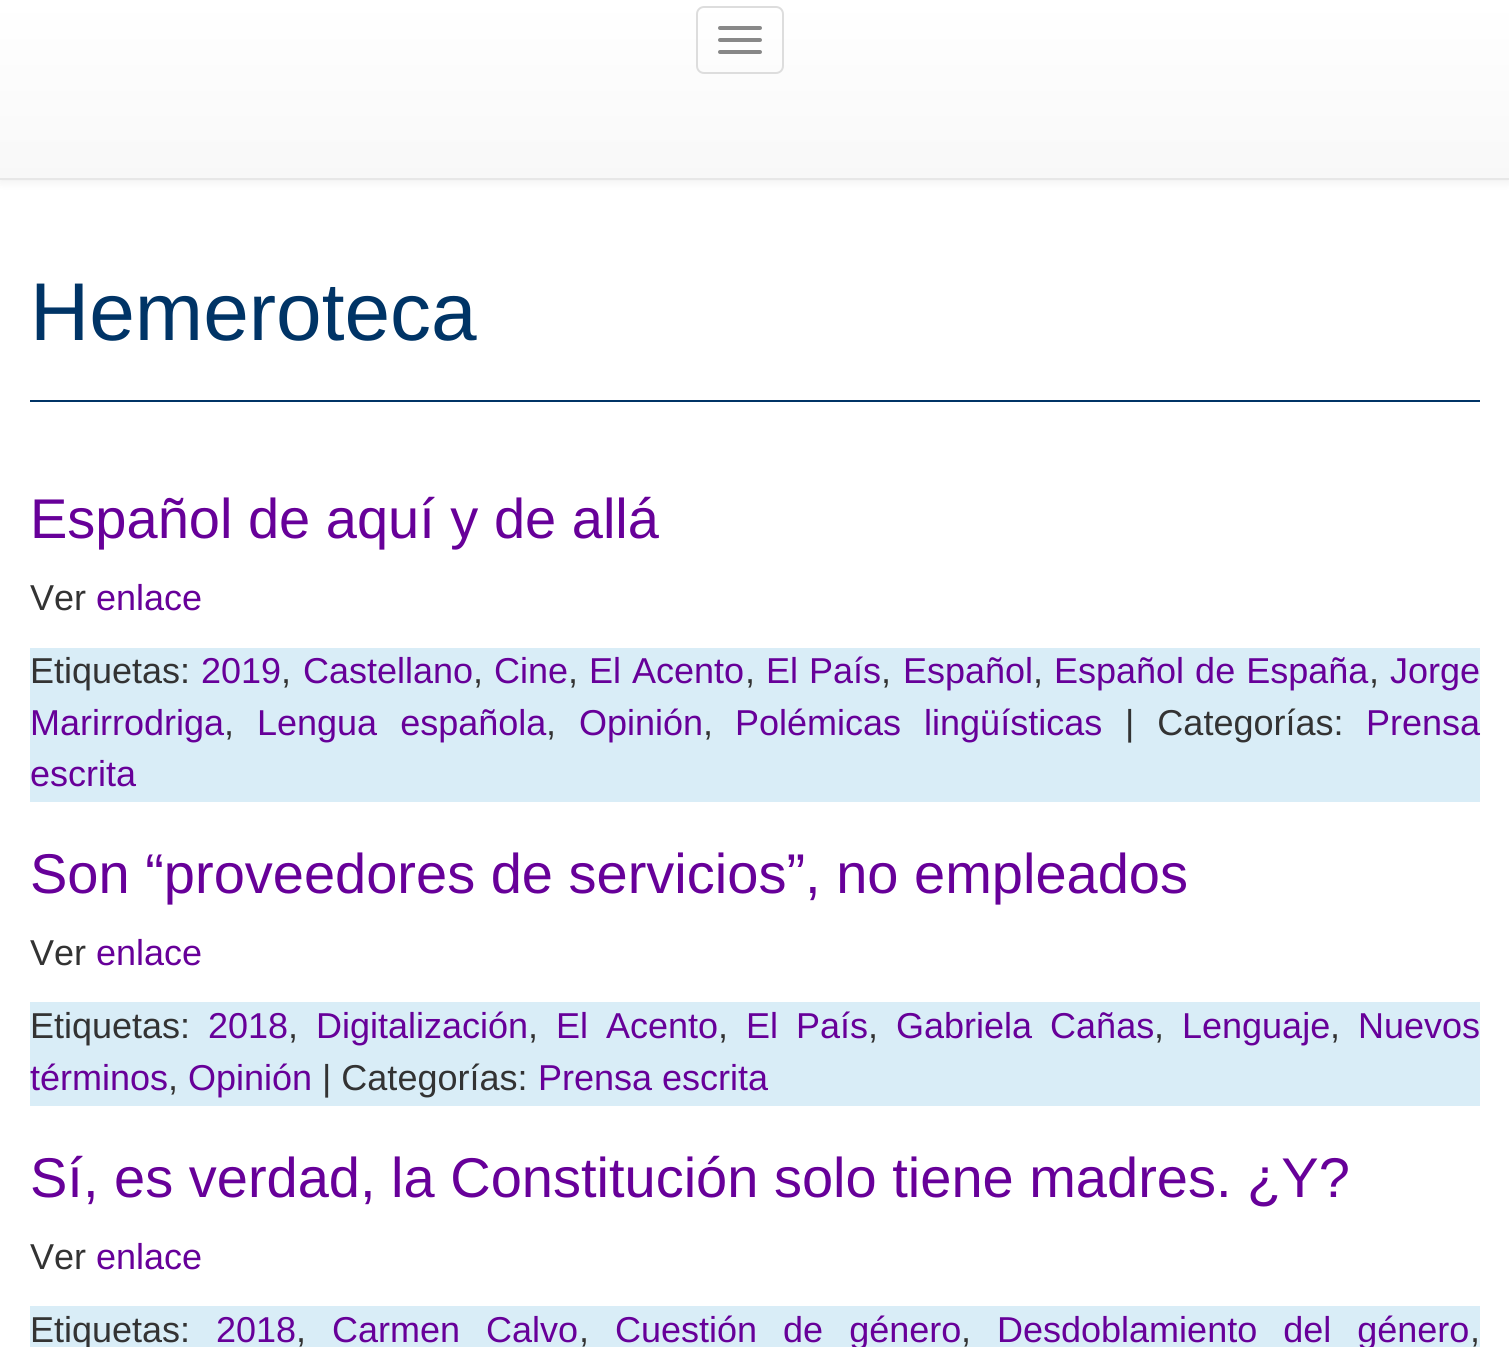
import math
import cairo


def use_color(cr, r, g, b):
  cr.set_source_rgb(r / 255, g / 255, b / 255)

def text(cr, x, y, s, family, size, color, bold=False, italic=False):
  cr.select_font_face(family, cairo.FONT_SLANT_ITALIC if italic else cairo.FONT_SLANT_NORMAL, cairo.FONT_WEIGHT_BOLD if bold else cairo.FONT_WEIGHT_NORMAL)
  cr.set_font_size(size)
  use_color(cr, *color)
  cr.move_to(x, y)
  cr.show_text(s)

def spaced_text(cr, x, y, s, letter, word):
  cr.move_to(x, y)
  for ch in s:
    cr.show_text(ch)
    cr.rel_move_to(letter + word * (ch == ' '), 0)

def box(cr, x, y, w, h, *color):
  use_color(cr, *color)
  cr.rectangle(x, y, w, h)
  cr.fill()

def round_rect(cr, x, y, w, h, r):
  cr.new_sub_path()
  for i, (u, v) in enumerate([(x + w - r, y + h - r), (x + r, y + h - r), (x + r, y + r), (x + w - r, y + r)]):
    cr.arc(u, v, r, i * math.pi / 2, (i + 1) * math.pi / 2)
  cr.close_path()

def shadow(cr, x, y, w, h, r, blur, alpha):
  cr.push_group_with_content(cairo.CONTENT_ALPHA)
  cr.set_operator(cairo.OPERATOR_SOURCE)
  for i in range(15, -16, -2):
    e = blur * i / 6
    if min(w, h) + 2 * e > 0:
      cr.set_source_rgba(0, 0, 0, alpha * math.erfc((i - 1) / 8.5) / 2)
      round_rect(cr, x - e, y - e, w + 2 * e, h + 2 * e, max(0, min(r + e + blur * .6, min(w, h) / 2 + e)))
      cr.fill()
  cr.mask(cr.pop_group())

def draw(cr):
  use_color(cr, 255, 255, 255)
  cr.paint()
  use_color(cr, 0, 0, 0)
  shadow(cr, 0, 2, 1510, 180, 0, 5, 0.07)
  gradient = cairo.LinearGradient(755, 0, 755, 178)
  gradient.add_color_stop_rgba(0, 1, 1, 1, 1)
  gradient.add_color_stop_rgba(1, 0.973, 0.973, 0.973, 1)
  cr.set_source(gradient)
  cr.rectangle(0, 0, 1509, 178)
  cr.fill()
  box(cr, 0, 178, 1509, 2, 231, 231, 231)
  round_rect(cr, 697, 7, 86, 66, 7)
  use_color(cr, 221, 221, 221)
  cr.stroke()
  use_color(cr, 136, 136, 136)
  round_rect(cr, 718, 26, 44, 4, 2)
  cr.fill()
  round_rect(cr, 718, 38, 44, 4, 2)
  cr.fill()
  round_rect(cr, 718, 50, 44, 4, 2)
  cr.fill()
  box(cr, 30, 400, 1450, 2, 0, 52, 102)
  box(cr, 30, 648, 1450, 154, 217, 237, 247)
  box(cr, 30, 1002, 1450, 104, 217, 237, 247)
  box(cr, 30, 1306, 1450, 41, 217, 237, 247)
  text(cr, 30, 340, "Hemeroteca", "Liberation Sans", 82, (0, 52, 102))
  text(cr, 30, 538, "Español de aquí y de allá", "Liberation Sans", 56, (103, 0, 153))
  text(cr, 30, 610, "Ver", "Liberation Sans", 36, (51, 51, 51))
  text(cr, 96, 610, "enlace", "Liberation Sans", 36, (103, 0, 153))
  text(cr, 30, 683, "Etiquetas:", "Liberation Sans", 36, (51, 51, 51))
  text(cr, 201, 683, "2019", "Liberation Sans", 36, (103, 0, 153))
  text(cr, 281, 683, ",", "Liberation Sans", 36, (51, 51, 51))
  text(cr, 303, 683, "Castellano", "Liberation Sans", 36, (103, 0, 153))
  text(cr, 473, 683, ",", "Liberation Sans", 36, (51, 51, 51))
  text(cr, 494, 683, "Cine", "Liberation Sans", 36, (103, 0, 153))
  text(cr, 568, 683, ",", "Liberation Sans", 36, (51, 51, 51))
  use_color(cr, 103, 0, 153)
  spaced_text(cr, 589, 683, "El Acento", 0, 1)
  text(cr, 745, 683, ",", "Liberation Sans", 36, (51, 51, 51))
  use_color(cr, 103, 0, 153)
  spaced_text(cr, 766, 683, "El País", 0, 1)
  text(cr, 881, 683, ",", "Liberation Sans", 36, (51, 51, 51))
  text(cr, 903, 683, "Español", "Liberation Sans", 36, (103, 0, 153))
  text(cr, 1033, 683, ",", "Liberation Sans", 36, (51, 51, 51))
  use_color(cr, 103, 0, 153)
  spaced_text(cr, 1054, 683, "Español de España", 0, 1)
  text(cr, 1369, 683, ",", "Liberation Sans", 36, (51, 51, 51))
  text(cr, 1390, 683, "Jorge", "Liberation Sans", 36, (103, 0, 153))
  text(cr, 30, 735, "Marirrodriga", "Liberation Sans", 36, (103, 0, 153))
  text(cr, 224, 735, ",", "Liberation Sans", 36, (51, 51, 51))
  use_color(cr, 103, 0, 153)
  spaced_text(cr, 257, 735, "Lengua española", 0, 13)
  text(cr, 546, 735, ",", "Liberation Sans", 36, (51, 51, 51))
  text(cr, 579, 735, "Opinión", "Liberation Sans", 36, (103, 0, 153))
  text(cr, 703, 735, ",", "Liberation Sans", 36, (51, 51, 51))
  use_color(cr, 103, 0, 153)
  spaced_text(cr, 735, 735, "Polémicas lingüísticas", 0, 13)
  use_color(cr, 51, 51, 51)
  spaced_text(cr, 1125, 735, "| Categorías:", 0, 13)
  text(cr, 1366, 735, "Prensa", "Liberation Sans", 36, (103, 0, 153))
  text(cr, 30, 786, "escrita", "Liberation Sans", 36, (103, 0, 153))
  text(cr, 30, 893, "Son “proveedores de servicios”, no empleados", "Liberation Sans", 56, (103, 0, 153))
  text(cr, 30, 965, "Ver", "Liberation Sans", 36, (51, 51, 51))
  text(cr, 96, 965, "enlace", "Liberation Sans", 36, (103, 0, 153))
  text(cr, 30, 1038, "Etiquetas:", "Liberation Sans", 36, (51, 51, 51))
  text(cr, 208, 1038, "2018", "Liberation Sans", 36, (103, 0, 153))
  text(cr, 288, 1038, ",", "Liberation Sans", 36, (51, 51, 51))
  text(cr, 316, 1038, "Digitalización", "Liberation Sans", 36, (103, 0, 153))
  text(cr, 528, 1038, ",", "Liberation Sans", 36, (51, 51, 51))
  use_color(cr, 103, 0, 153)
  spaced_text(cr, 556, 1038, "El Acento", 0, 8)
  text(cr, 718, 1038, ",", "Liberation Sans", 36, (51, 51, 51))
  use_color(cr, 103, 0, 153)
  spaced_text(cr, 746, 1038, "El País", 0, 8)
  text(cr, 868, 1038, ",", "Liberation Sans", 36, (51, 51, 51))
  use_color(cr, 103, 0, 153)
  spaced_text(cr, 896, 1038, "Gabriela Cañas", 0, 8)
  text(cr, 1154, 1038, ",", "Liberation Sans", 36, (51, 51, 51))
  text(cr, 1182, 1038, "Lenguaje", "Liberation Sans", 36, (103, 0, 153))
  text(cr, 1330, 1038, ",", "Liberation Sans", 36, (51, 51, 51))
  text(cr, 1358, 1038, "Nuevos", "Liberation Sans", 36, (103, 0, 153))
  text(cr, 30, 1090, "términos", "Liberation Sans", 36, (103, 0, 153))
  text(cr, 168, 1090, ",", "Liberation Sans", 36, (51, 51, 51))
  text(cr, 188, 1090, "Opinión", "Liberation Sans", 36, (103, 0, 153))
  text(cr, 322, 1090, "| Categorías:", "Liberation Sans", 36, (51, 51, 51))
  text(cr, 538, 1090, "Prensa escrita", "Liberation Sans", 36, (103, 0, 153))
  text(cr, 30, 1197, "Sí, es verdad, la Constitución solo tiene madres. ¿Y?", "Liberation Sans", 56, (103, 0, 153))
  text(cr, 30, 1269, "Ver", "Liberation Sans", 36, (51, 51, 51))
  text(cr, 96, 1269, "enlace", "Liberation Sans", 36, (103, 0, 153))
  text(cr, 30, 1342, "Etiquetas:", "Liberation Sans", 36, (51, 51, 51))
  text(cr, 216, 1342, "2018", "Liberation Sans", 36, (103, 0, 153))
  text(cr, 296, 1342, ",", "Liberation Sans", 36, (51, 51, 51))
  use_color(cr, 103, 0, 153)
  spaced_text(cr, 332, 1342, "Carmen Calvo", 0, 16)
  text(cr, 579, 1342, ",", "Liberation Sans", 36, (51, 51, 51))
  use_color(cr, 103, 0, 153)
  spaced_text(cr, 615, 1342, "Cuestión de género", 0, 16)
  text(cr, 961, 1342, ",", "Liberation Sans", 36, (51, 51, 51))
  use_color(cr, 103, 0, 153)
  spaced_text(cr, 997, 1342, "Desdoblamiento del género", 0, 16)
  text(cr, 1470, 1342, ",", "Liberation Sans", 36, (51, 51, 51))


surface = cairo.ImageSurface(cairo.FORMAT_RGB24, 1509, 1347)
cr = cairo.Context(surface)
options = cairo.FontOptions()
options.set_hint_metrics(cairo.HINT_METRICS_OFF)
options.set_hint_style(cairo.HINT_STYLE_NONE)
cr.set_font_options(options)
cr.set_miter_limit(4)
draw(cr)
surface.write_to_png("out.png")
